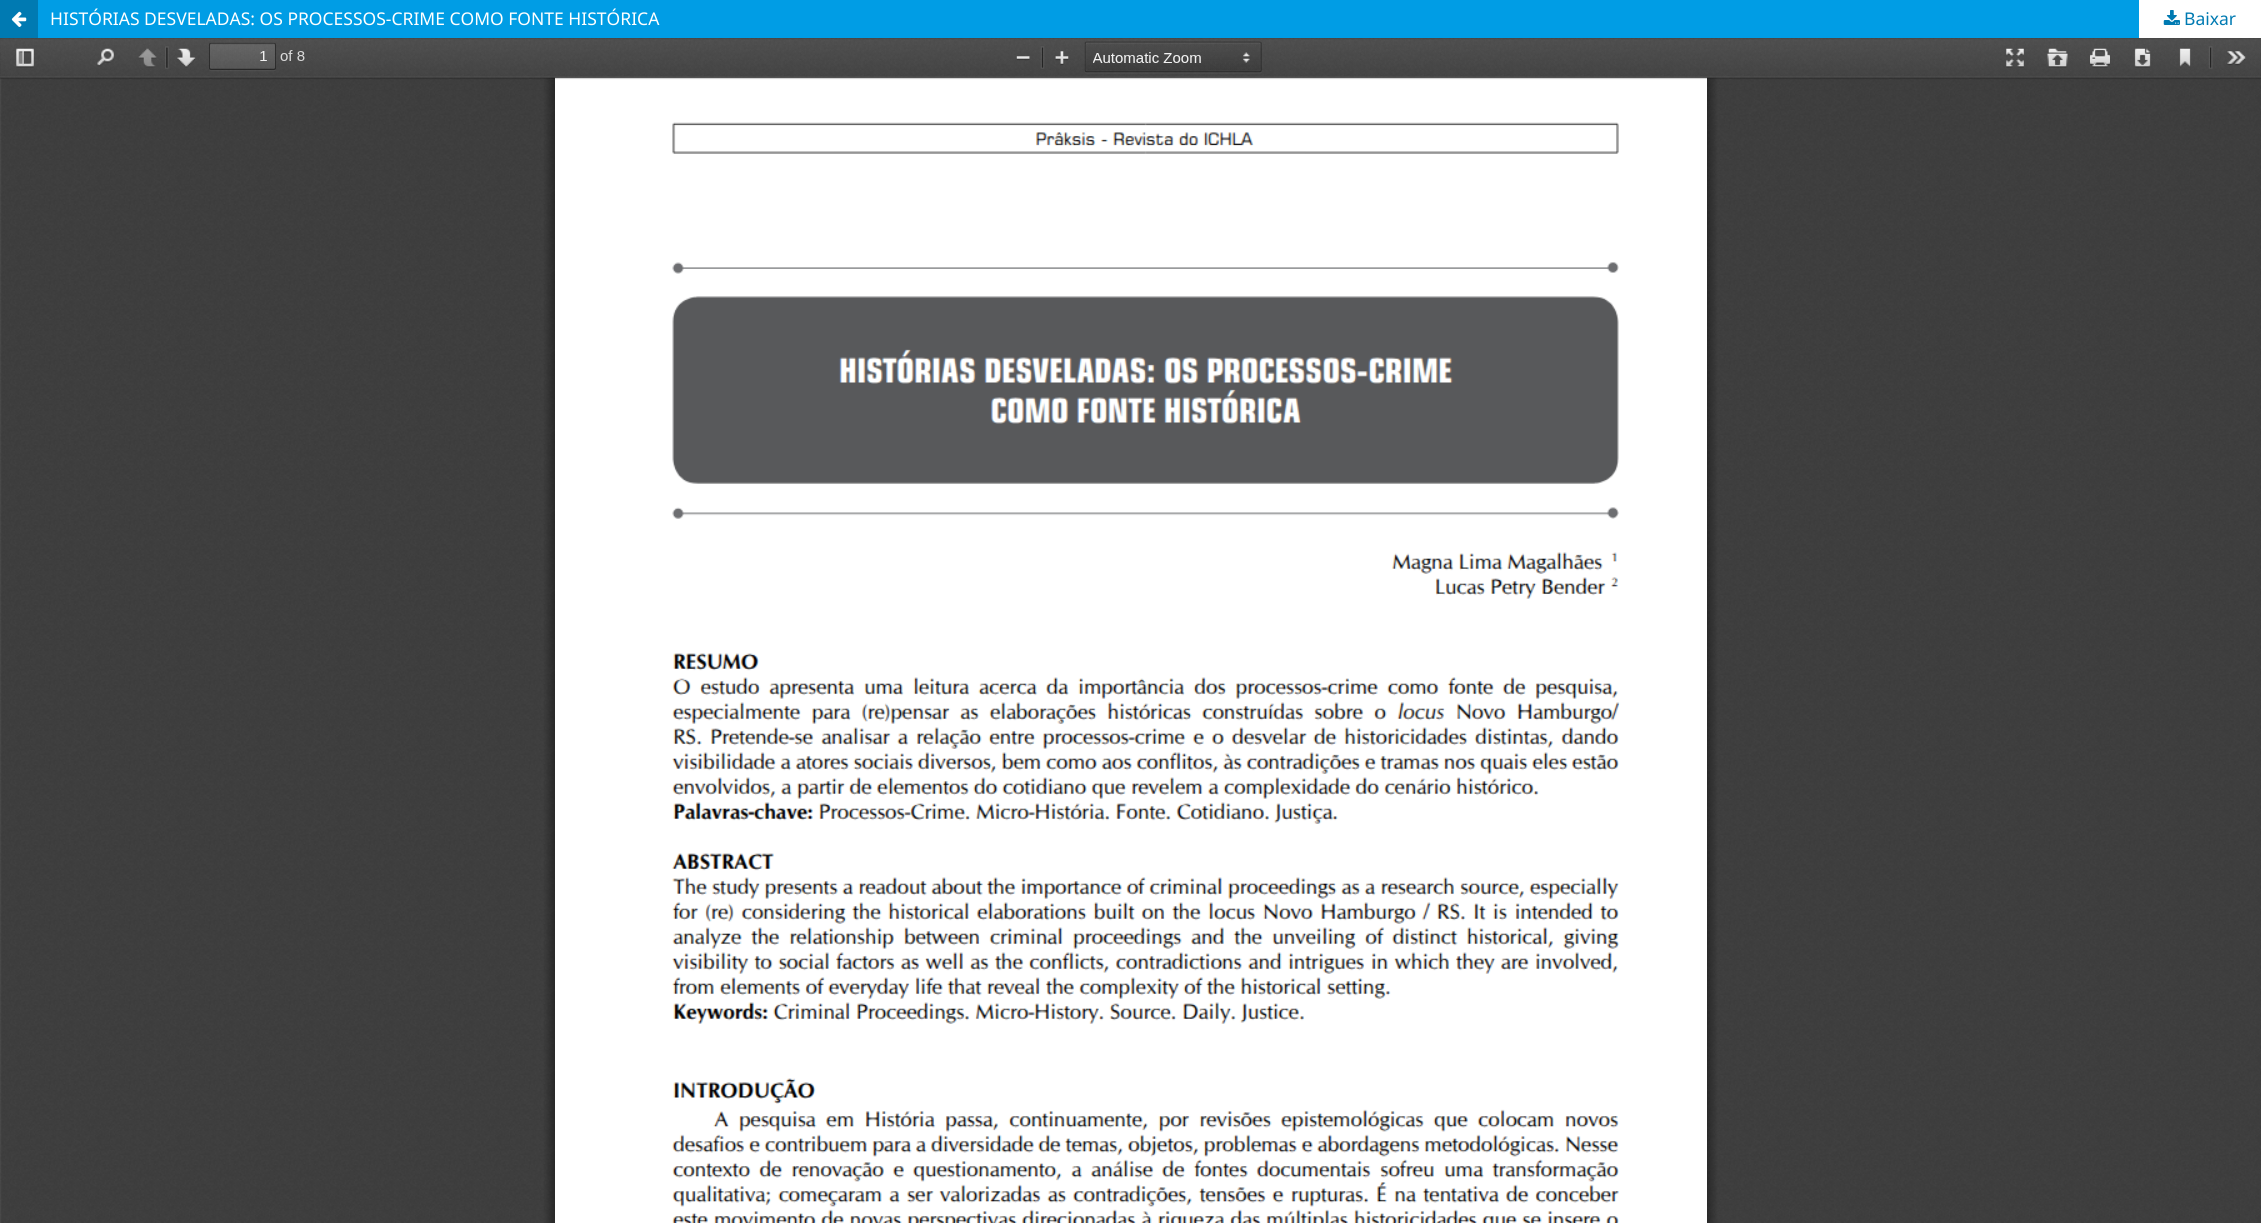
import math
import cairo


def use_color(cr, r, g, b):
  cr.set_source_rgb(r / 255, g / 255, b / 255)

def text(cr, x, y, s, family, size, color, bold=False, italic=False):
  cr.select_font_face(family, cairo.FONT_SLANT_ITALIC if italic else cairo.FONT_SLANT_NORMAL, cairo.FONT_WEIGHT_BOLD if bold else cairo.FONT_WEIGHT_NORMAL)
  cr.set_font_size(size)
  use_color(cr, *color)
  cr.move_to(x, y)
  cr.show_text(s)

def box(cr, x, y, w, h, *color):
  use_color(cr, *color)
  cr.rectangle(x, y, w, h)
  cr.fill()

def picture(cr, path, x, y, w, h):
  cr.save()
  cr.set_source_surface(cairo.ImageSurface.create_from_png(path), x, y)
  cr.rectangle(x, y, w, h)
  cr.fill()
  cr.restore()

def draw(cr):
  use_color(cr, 255, 255, 255)
  cr.paint()
  box(cr, 38, 0, 2101, 38, 0, 157, 229)
  box(cr, 0, 0, 38, 38, 0, 122, 178)
  picture(cr, "img_01.png", 11, 11, 16, 16)
  picture(cr, "img_02.png", 2163, 10, 17, 15)
  picture(cr, "img_03.png", 0, 38, 2261, 1185)
  text(cr, 50, 25, "HISTÓRIAS DESVELADAS: OS PROCESSOS-CRIME COMO FONTE HISTÓRICA", "Noto Sans", 17.5, (255, 255, 255))
  text(cr, 2184, 25, "Baixar", "Noto Sans", 17.5, (0, 122, 178))


surface = cairo.ImageSurface(cairo.FORMAT_RGB24, 2261, 1223)
cr = cairo.Context(surface)
options = cairo.FontOptions()
options.set_hint_metrics(cairo.HINT_METRICS_OFF)
options.set_hint_style(cairo.HINT_STYLE_NONE)
cr.set_font_options(options)
cr.set_miter_limit(4)
draw(cr)
surface.write_to_png("out.png")
